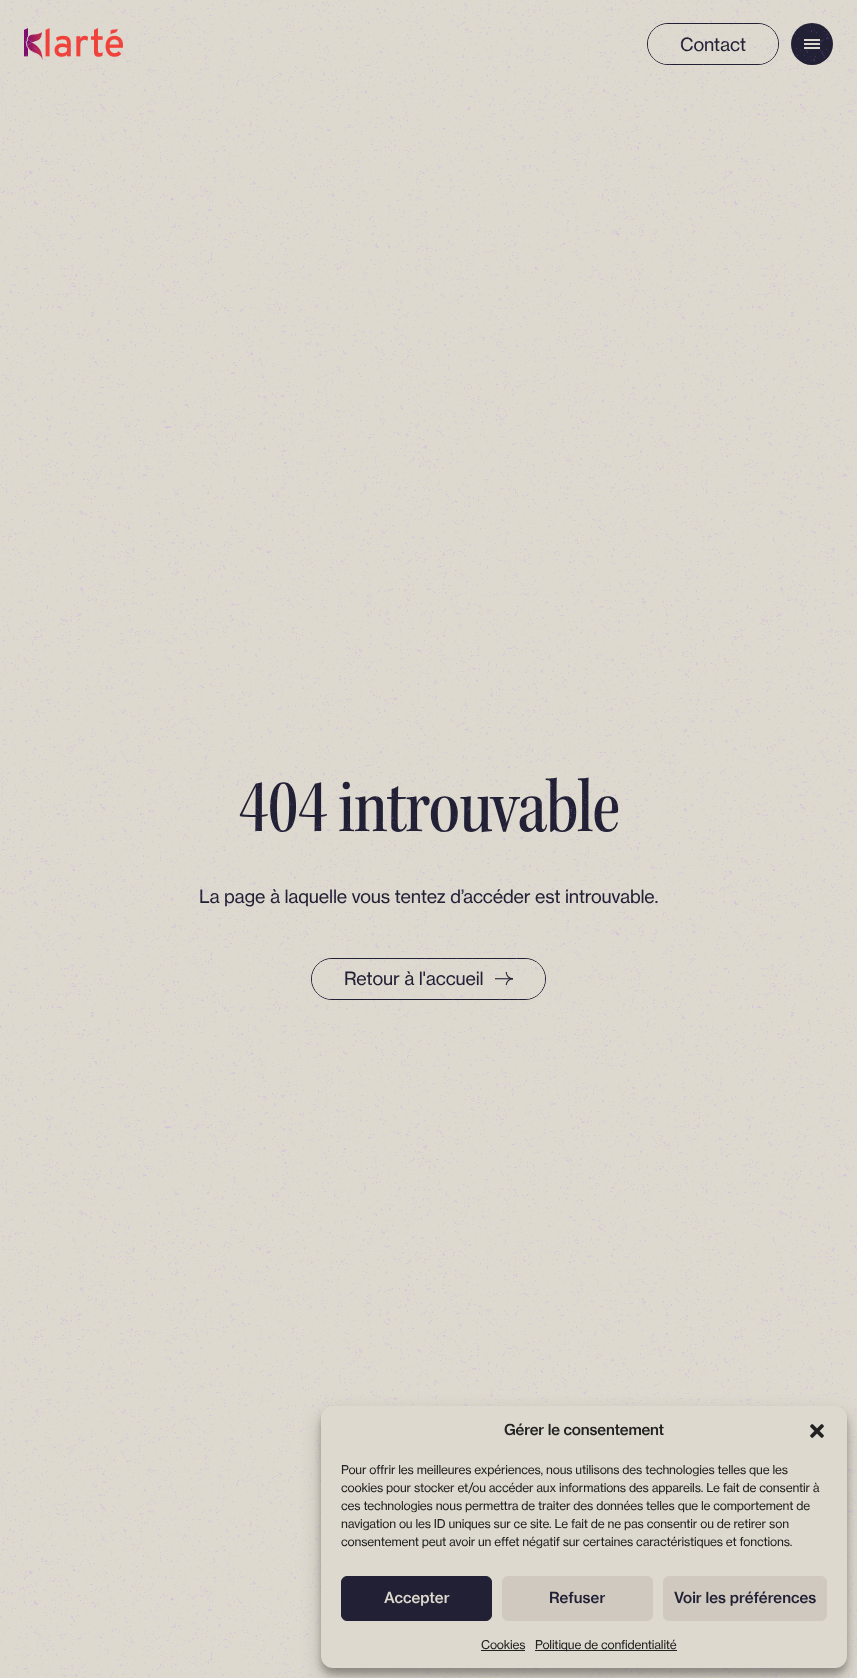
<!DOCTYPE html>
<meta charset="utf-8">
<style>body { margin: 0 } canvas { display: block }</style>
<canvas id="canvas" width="857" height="1678"></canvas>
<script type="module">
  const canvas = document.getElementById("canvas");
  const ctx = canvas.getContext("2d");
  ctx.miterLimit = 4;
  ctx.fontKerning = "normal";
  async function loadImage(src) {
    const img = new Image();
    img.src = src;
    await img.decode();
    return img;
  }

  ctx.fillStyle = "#ded9ce";
  ctx.fillRect(0, 0, 857, 1678);
  ctx.drawImage(await loadImage("img2.png"), 24, 28, 99, 32);
  ctx.beginPath();
  ctx.roundRect(647.5, 23.5, 131, 41, 20.5);
  ctx.strokeStyle = "#222035";
  ctx.stroke();
  ctx.beginPath();
  ctx.roundRect(648, 24, 130, 40, 20);
  ctx.fill();
  ctx.letterSpacing = "-0.18px";
  ctx.font = "18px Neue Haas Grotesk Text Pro";
  ctx.fillStyle = "#222035";
  ctx.fillText("Contact", 680, 51);
  ctx.beginPath();
  ctx.arc(812, 44, 21, 0, Math.PI * 2);
  ctx.fill();
  ctx.fillStyle = "#ded9ce";
  ctx.fillRect(804, 39, 16, 2);
  ctx.fillRect(804, 43, 16, 2);
  ctx.fillRect(804, 47, 16, 2);
  ctx.letterSpacing = "-1.6px";
  ctx.font = "500 80px 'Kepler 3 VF'";
  ctx.fillStyle = "#222035";
  ctx.fillText("404 introuvable", 238, 831);
  ctx.letterSpacing = "-0.18px";
  ctx.font = "18px Neue Haas Grotesk Text Pro";
  ctx.fillText("La page à laquelle vous tentez d’accéder est introuvable.", 199, 903);
  ctx.beginPath();
  ctx.roundRect(311.5, 958.5, 234, 41, 20.5);
  ctx.stroke();
  ctx.fillStyle = "#ded9ce";
  ctx.beginPath();
  ctx.roundRect(312, 959, 233, 40, 20);
  ctx.fill();
  ctx.fillStyle = "#222035";
  ctx.fillText("Retour à l'accueil", 344, 985);
  ctx.drawImage(await loadImage("img3.png"), 495, 972, 18, 13);
  ctx.drawImage(await loadImage("img1.png"), 0, 0, 857, 1678);
  ctx.fillStyle = "rgba(0, 0, 0, 0.23)";
  ctx.filter = "blur(3px)";
  ctx.beginPath();
  ctx.roundRect(321, 1412, 526, 262, 12);
  ctx.fill();
  ctx.filter = "none";
  ctx.fillStyle = "rgba(0, 0, 0, 0.19)";
  ctx.filter = "blur(10px)";
  ctx.beginPath();
  ctx.roundRect(321, 1416, 526, 262, 12);
  ctx.fill();
  ctx.filter = "none";
  ctx.fillStyle = "#ded9ce";
  ctx.beginPath();
  ctx.roundRect(321, 1406, 526, 262, 12);
  ctx.fill();
  ctx.font = "500 15px Neue Haas Grotesk Text Pro";
  ctx.fillStyle = "#222222";
  ctx.fillText("Gérer le consentement", 504, 1435);
  ctx.drawImage(await loadImage("img4.png"), 810, 1424, 14, 14);
  ctx.font = "12px Neue Haas Grotesk Text Pro";
  ctx.fillText("Pour offrir les meilleures expériences, nous utilisons des technologies telles que les", 341, 1474);
  ctx.fillText("cookies pour stocker et/ou accéder aux informations des appareils. Le fait de consentir à", 341, 1492);
  ctx.fillText("ces technologies nous permettra de traiter des données telles que le comportement de", 341, 1510);
  ctx.fillText("navigation ou les ID uniques sur ce site. Le fait de ne pas consentir ou de retirer son", 341, 1528);
  ctx.fillText("consentement peut avoir un effet négatif sur certaines caractéristiques et fonctions.", 341, 1546);
  ctx.fillStyle = "#222035";
  ctx.beginPath();
  ctx.roundRect(341.5, 1576.5, 150, 44, 5.5);
  ctx.fill();
  ctx.stroke();
  ctx.letterSpacing = "0px";
  ctx.font = "500 15px Neue Haas Grotesk Text Pro";
  ctx.fillStyle = "#ded9ce";
  ctx.fillText("Accepter", 384, 1603);
  ctx.fillStyle = "#cfc9bf";
  ctx.beginPath();
  ctx.roundRect(502.5, 1576.5, 150, 44, 5.5);
  ctx.fill();
  ctx.strokeStyle = "#cfc9bf";
  ctx.stroke();
  ctx.fillStyle = "#222035";
  ctx.fillText("Refuser", 549, 1603);
  ctx.fillStyle = "#cfc9bf";
  ctx.beginPath();
  ctx.roundRect(663.5, 1576.5, 163, 44, 5.5);
  ctx.fill();
  ctx.stroke();
  ctx.fillStyle = "#222035";
  ctx.fillText("Voir les préférences", 674, 1603);
  ctx.letterSpacing = "-0.18px";
  ctx.font = "12px Neue Haas Grotesk Text Pro";
  ctx.fillStyle = "#222222";
  ctx.fillText("Cookies", 481, 1649);
  ctx.fillRect(481, 1650, 44, 1);
  ctx.fillRect(535, 1650, 142, 1);
  ctx.fillText("Politique de confidentialité", 535, 1649);
</script>
